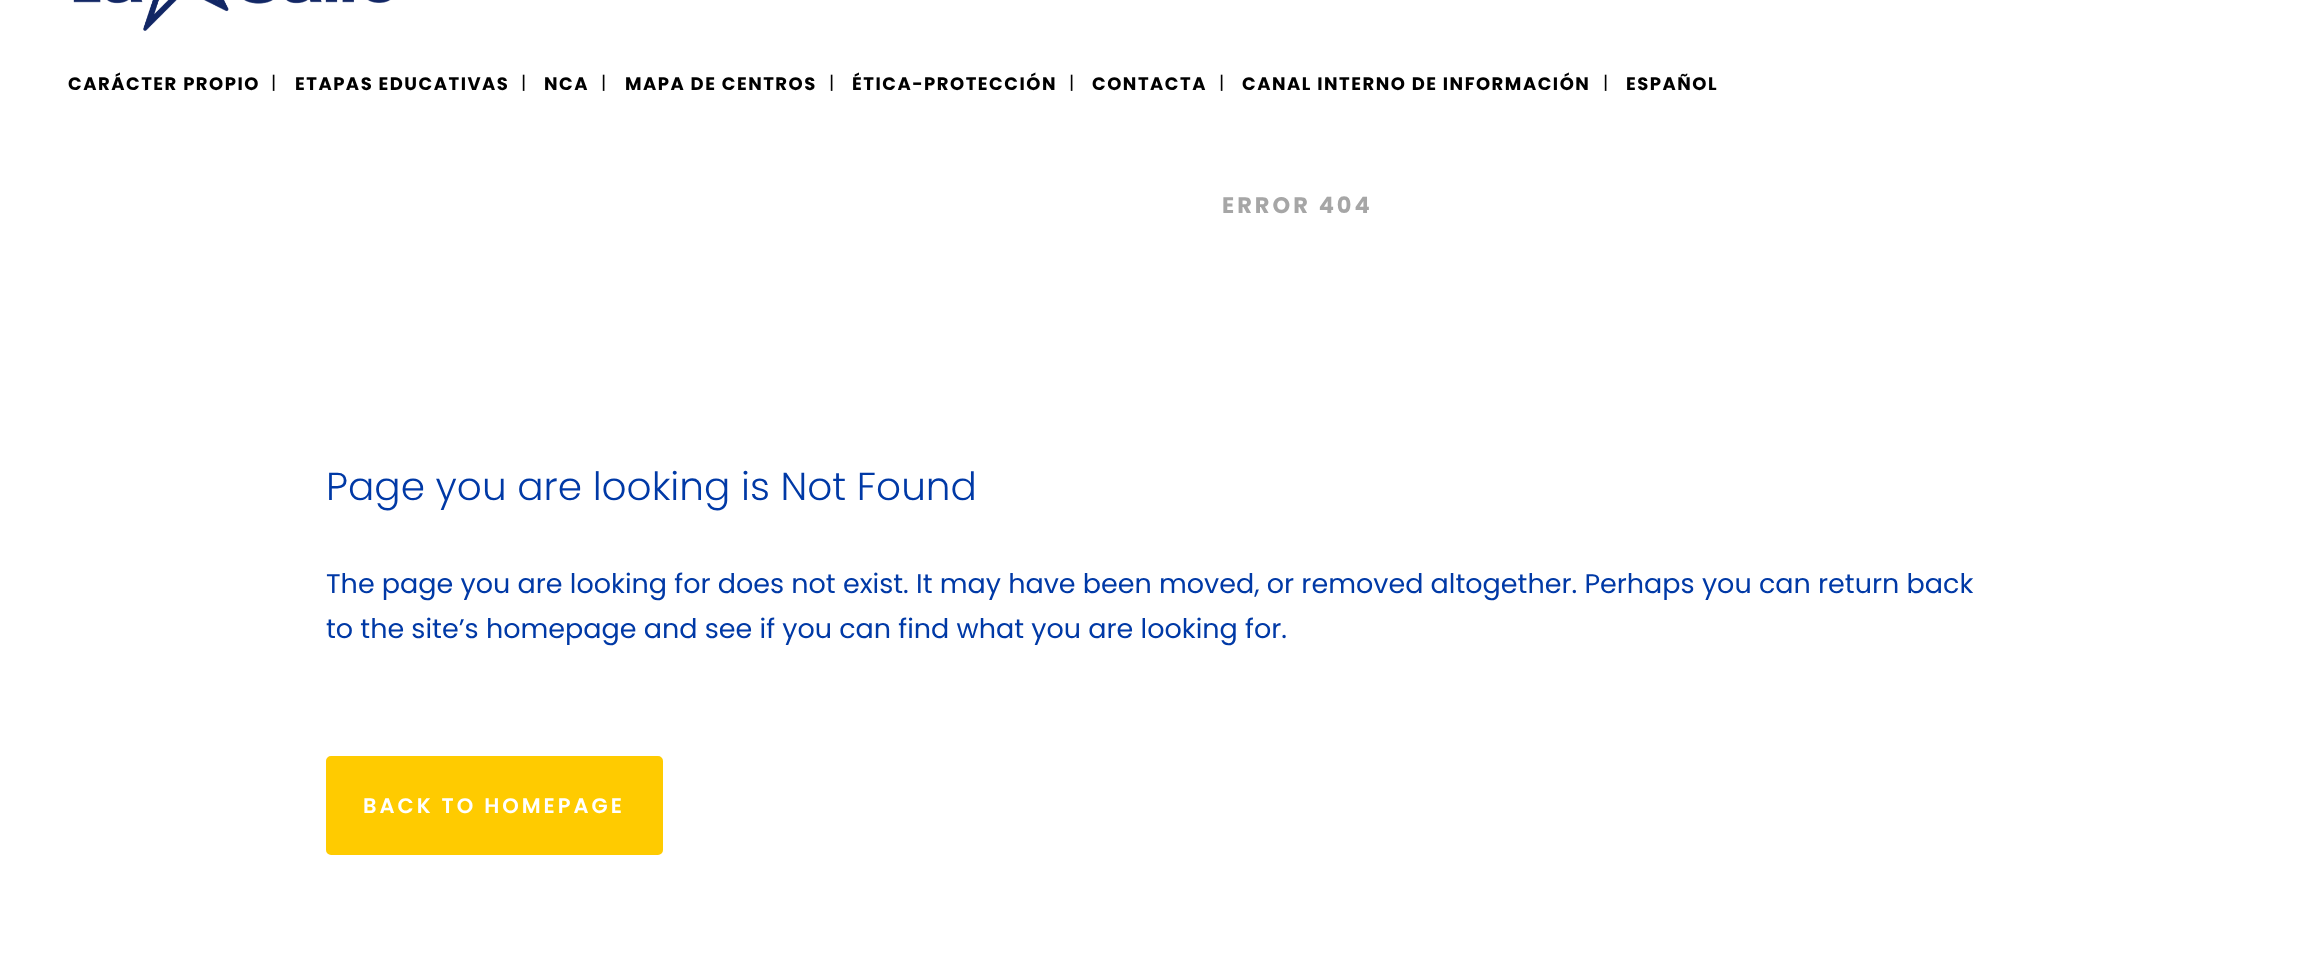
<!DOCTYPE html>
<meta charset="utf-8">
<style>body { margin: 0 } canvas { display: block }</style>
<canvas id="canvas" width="2300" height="966"></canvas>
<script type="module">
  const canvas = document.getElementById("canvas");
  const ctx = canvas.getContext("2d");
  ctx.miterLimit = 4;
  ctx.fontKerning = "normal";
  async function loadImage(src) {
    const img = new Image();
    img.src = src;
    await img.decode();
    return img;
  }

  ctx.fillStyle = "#ffffff";
  ctx.fillRect(0, 0, 2300, 966);
  ctx.drawImage(await loadImage("img1.png"), 73, 0, 318, 31);
  ctx.letterSpacing = "1.5px";
  ctx.font = "bold 18px Poppins";
  ctx.fillStyle = "#000000";
  ctx.fillText("CARÁCTER PROPIO", 68, 90);
  ctx.letterSpacing = "0px";
  ctx.font = "18px Poppins";
  ctx.fillText("|", 271, 89);
  ctx.letterSpacing = "1.5px";
  ctx.font = "bold 18px Poppins";
  ctx.fillText("ETAPAS EDUCATIVAS", 295, 90);
  ctx.letterSpacing = "0px";
  ctx.font = "18px Poppins";
  ctx.fillText("|", 521, 89);
  ctx.letterSpacing = "1.5px";
  ctx.font = "bold 18px Poppins";
  ctx.fillText("NCA", 544, 90);
  ctx.letterSpacing = "0px";
  ctx.font = "18px Poppins";
  ctx.fillText("|", 601, 89);
  ctx.letterSpacing = "1.5px";
  ctx.font = "bold 18px Poppins";
  ctx.fillText("MAPA DE CENTROS", 625, 90);
  ctx.letterSpacing = "0px";
  ctx.font = "18px Poppins";
  ctx.fillText("|", 829, 89);
  ctx.letterSpacing = "1.5px";
  ctx.font = "bold 18px Poppins";
  ctx.fillText("ÉTICA-PROTECCIÓN", 852, 90);
  ctx.letterSpacing = "0px";
  ctx.font = "18px Poppins";
  ctx.fillText("|", 1069, 89);
  ctx.letterSpacing = "1.5px";
  ctx.font = "bold 18px Poppins";
  ctx.fillText("CONTACTA", 1092, 90);
  ctx.letterSpacing = "0px";
  ctx.font = "18px Poppins";
  ctx.fillText("|", 1219, 89);
  ctx.letterSpacing = "1.5px";
  ctx.font = "bold 18px Poppins";
  ctx.fillText("CANAL INTERNO DE INFORMACIÓN", 1242, 90);
  ctx.letterSpacing = "0px";
  ctx.font = "18px Poppins";
  ctx.fillText("|", 1603, 89);
  ctx.letterSpacing = "1.5px";
  ctx.font = "bold 18px Poppins";
  ctx.fillText("ESPAÑOL", 1626, 90);
  ctx.letterSpacing = "3px";
  ctx.font = "bold 22.5px Poppins";
  ctx.fillStyle = "#a6a6a6";
  ctx.fillText("ERROR 404", 1222, 213);
  ctx.letterSpacing = "0px";
  ctx.font = "300 39px Poppins";
  ctx.fillStyle = "#0039a6";
  ctx.fillText("Page you are looking is Not Found", 326, 500);
  ctx.font = "27px Poppins";
  ctx.fillText("The page you are looking for does not exist. It may have been moved, or removed altogether. Perhaps you can return back", 326, 593);
  ctx.fillText("to the site’s homepage and see if you can find what you are looking for.", 326, 638);
  ctx.fillStyle = "#ffcb00";
  ctx.beginPath();
  ctx.roundRect(328.5, 758.5, 332, 94, 2.5);
  ctx.fill();
  ctx.strokeStyle = "#ffcb00";
  ctx.lineWidth = 5;
  ctx.stroke();
  ctx.letterSpacing = "3px";
  ctx.font = "600 21px Poppins";
  ctx.fillStyle = "#ffffff";
  ctx.fillText("BACK TO HOMEPAGE", 363, 813);
</script>
